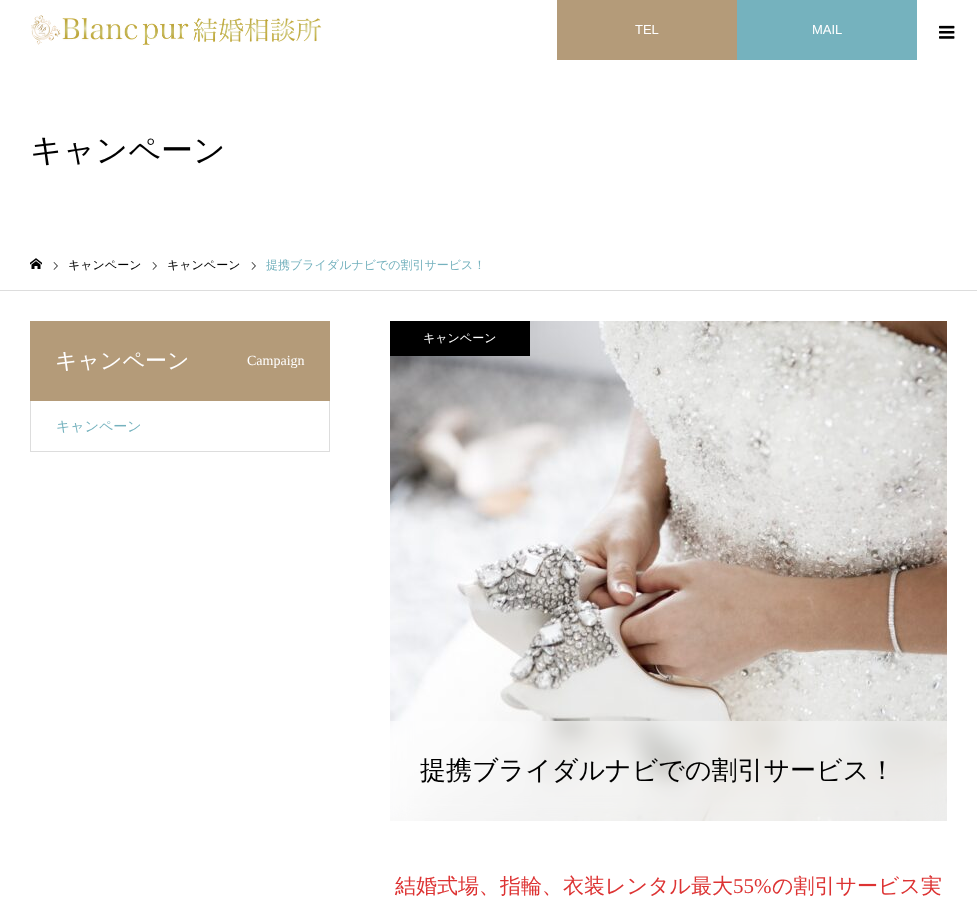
<!DOCTYPE html>
<meta charset="utf-8">
<style>body { margin: 0 } canvas { display: block }</style>
<canvas id="canvas" width="977" height="906"></canvas>
<script type="module">
  const canvas = document.getElementById("canvas");
  const ctx = canvas.getContext("2d");
  ctx.miterLimit = 4;
  ctx.fontKerning = "normal";
  async function loadImage(src) {
    const img = new Image();
    img.src = src;
    await img.decode();
    return img;
  }

  ctx.fillStyle = "#ffffff";
  ctx.fillRect(0, 0, 977, 906);
  ctx.drawImage(await loadImage("img1.png"), 31, 15, 291, 30);
  ctx.fillStyle = "#b49b79";
  ctx.fillRect(557, 0, 180, 60);
  ctx.font = "13px Liberation Sans";
  ctx.fillStyle = "#ffffff";
  ctx.fillText("TEL", 635, 34);
  ctx.fillStyle = "#75b2be";
  ctx.fillRect(737, 0, 180, 60);
  ctx.fillStyle = "#ffffff";
  ctx.fillText("MAIL", 812, 34);
  ctx.drawImage(await loadImage("img2.png"), 939, 25, 16, 14);
  ctx.font = "500 32px WenQuanYi Zen Hei";
  ctx.fillStyle = "#000000";
  ctx.fillText("キャンペーン", 30, 161);
  ctx.fillStyle = "#dddddd";
  ctx.fillRect(0, 290, 977, 1);
  ctx.drawImage(await loadImage("img3.png"), 30, 258, 12, 11);
  ctx.drawImage(await loadImage("img4.png"), 53, 262, 5, 8);
  ctx.font = "500 12px WenQuanYi Zen Hei";
  ctx.fillStyle = "#000000";
  ctx.fillText("キャンペーン", 68, 269);
  ctx.drawImage(await loadImage("img4.png"), 152, 262, 5, 8);
  ctx.fillText("キャンペーン", 167, 269);
  ctx.drawImage(await loadImage("img4.png"), 251, 262, 5, 8);
  ctx.fillStyle = "#75b2be";
  ctx.fillText("提携ブライダルナビでの割引サービス！", 266, 269);
  ctx.fillStyle = "#b49b79";
  ctx.fillRect(30, 321, 300, 80);
  ctx.font = "500 22px WenQuanYi Zen Hei";
  ctx.fillStyle = "#ffffff";
  ctx.fillText("キャンペーン", 55, 368);
  ctx.font = "14px Liberation Serif";
  ctx.fillText("Campaign", 247, 365);
  ctx.fillStyle = "#dddddd";
  ctx.fillRect(329, 401, 1, 51);
  ctx.fillRect(30, 451, 300, 1);
  ctx.fillRect(30, 401, 1, 51);
  ctx.font = "500 14px WenQuanYi Zen Hei";
  ctx.fillStyle = "#75b2be";
  ctx.fillText("キャンペーン", 56, 431);
  ctx.drawImage(await loadImage("img5.png"), 390, 321, 557, 500);
  ctx.fillStyle = "#000000";
  ctx.fillRect(390, 321, 140, 35);
  ctx.font = "500 12px WenQuanYi Zen Hei";
  ctx.fillStyle = "#ffffff";
  ctx.fillText("キャンペーン", 423, 342);
  ctx.drawImage(await loadImage("img6.png"), 390, 721, 557, 100);
  ctx.fillStyle = "rgba(255, 255, 255, 0.4)";
  ctx.fillRect(390, 721, 557, 100);
  ctx.font = "500 26px WenQuanYi Zen Hei";
  ctx.fillStyle = "#000000";
  ctx.fillText("提携ブライダルナビでの割引サービス！", 420, 779);
  ctx.font = "500 21px WenQuanYi Zen Hei";
  ctx.fillStyle = "#dd3333";
  ctx.fillText("結婚式場、指輪、衣装レンタル最大", 395, 893);
  ctx.font = "21px Liberation Serif";
  ctx.fillText("55%", 733, 893);
  ctx.font = "500 21px WenQuanYi Zen Hei";
  ctx.fillText("の割引サービス実", 772, 893);
</script>
